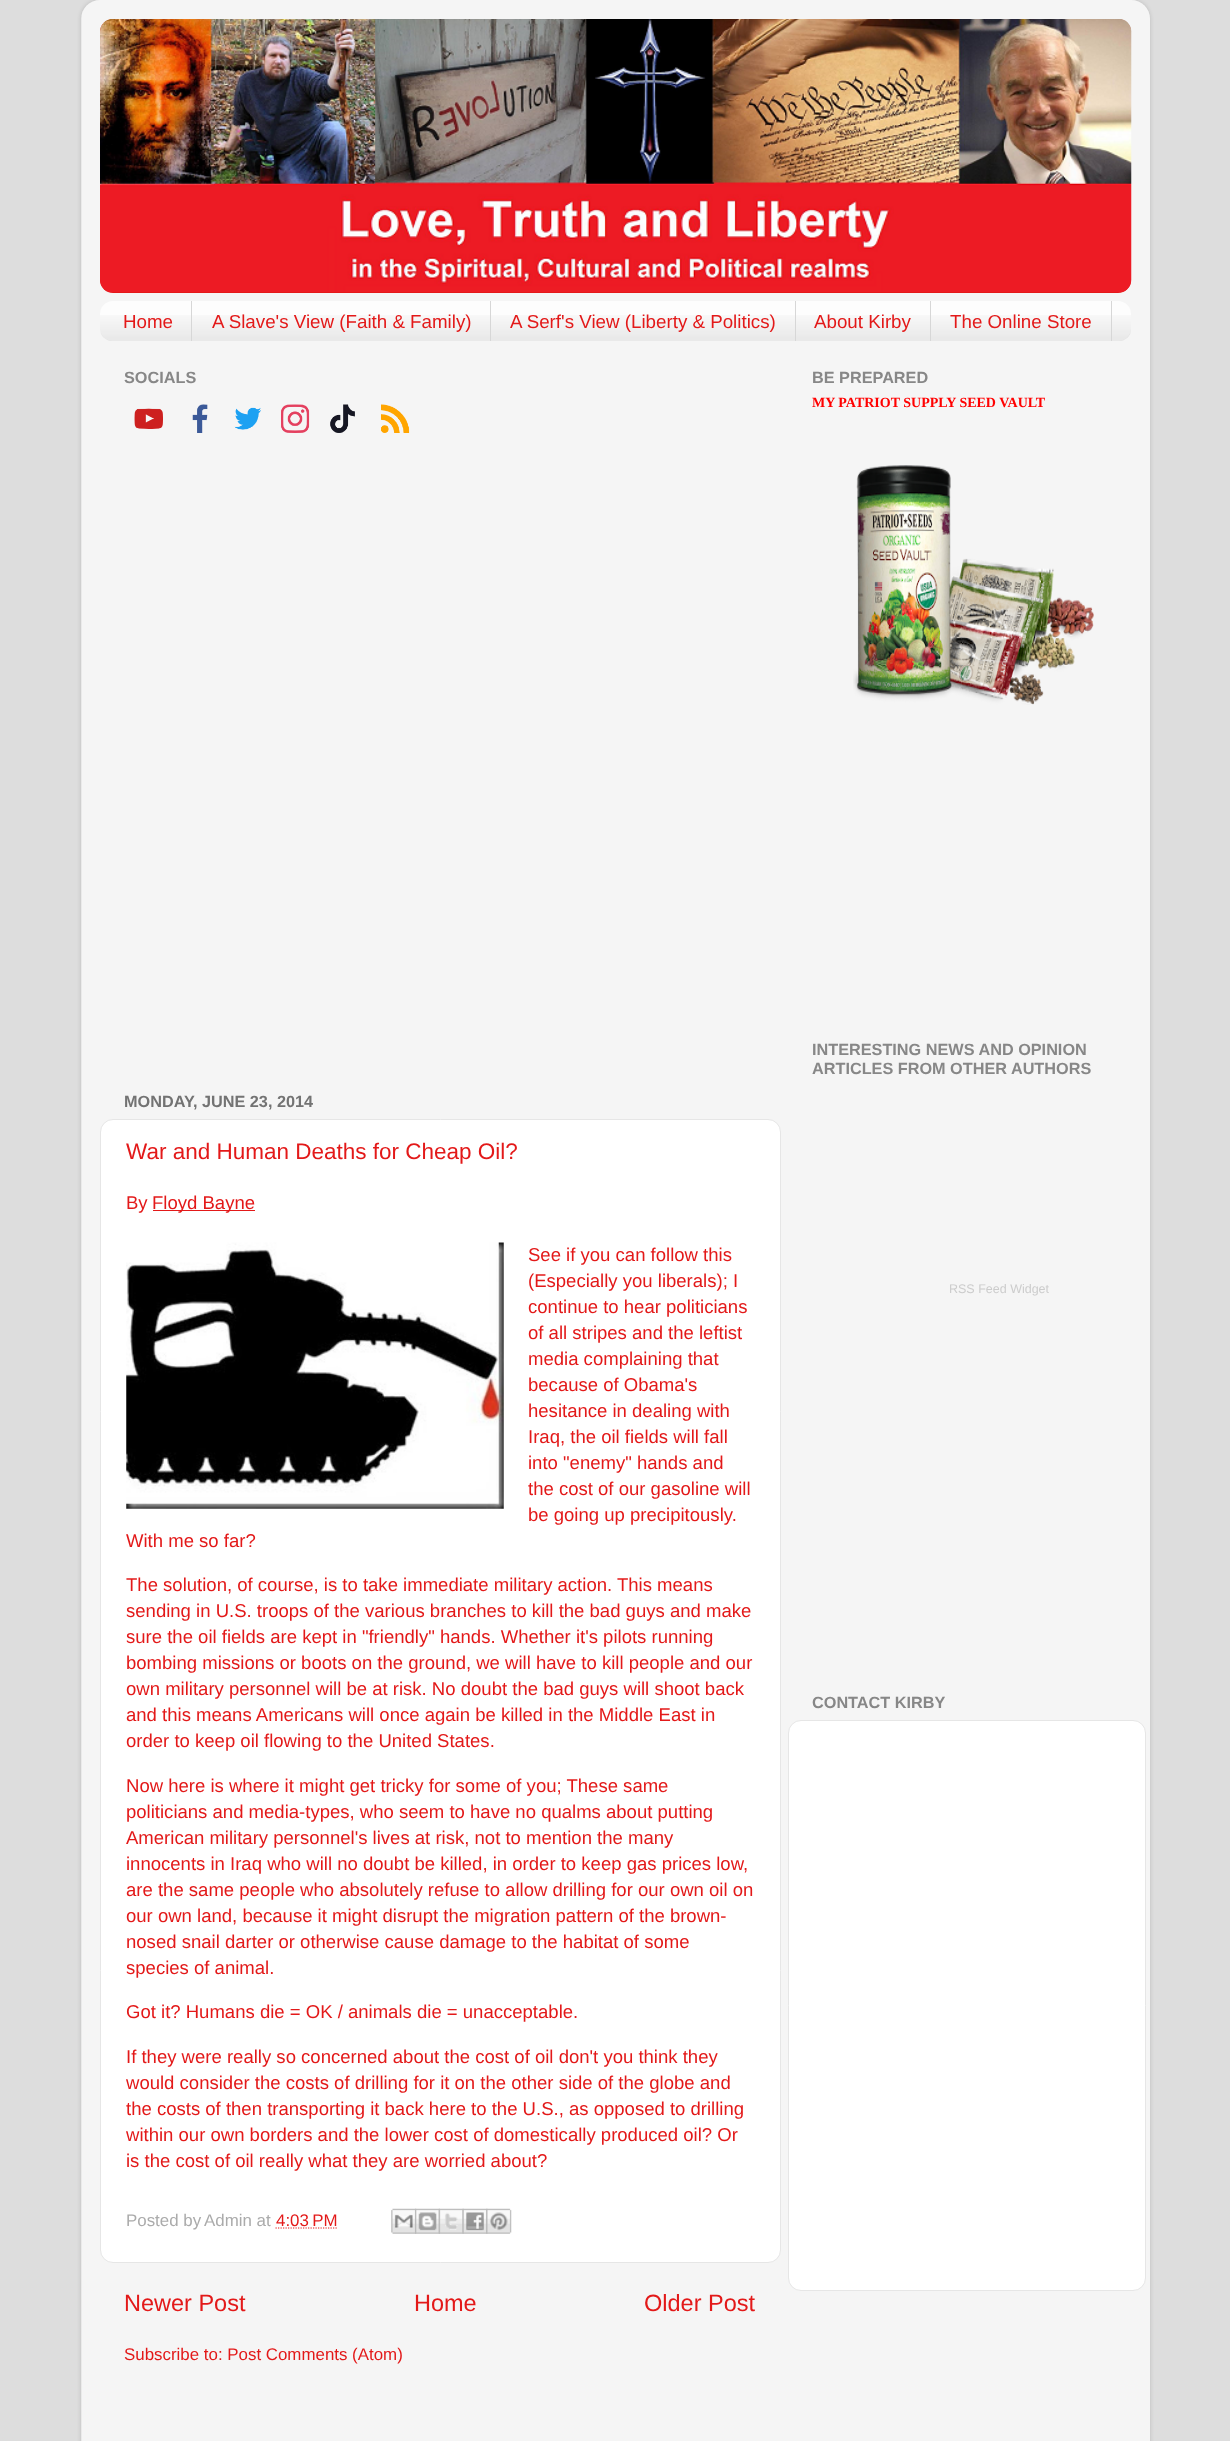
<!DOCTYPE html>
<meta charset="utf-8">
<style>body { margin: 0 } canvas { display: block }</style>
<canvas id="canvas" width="1230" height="2441"></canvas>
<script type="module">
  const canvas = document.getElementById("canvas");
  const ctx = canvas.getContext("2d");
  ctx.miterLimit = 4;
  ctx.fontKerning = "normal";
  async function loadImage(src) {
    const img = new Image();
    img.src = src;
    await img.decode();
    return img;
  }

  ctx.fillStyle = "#dddddd";
  ctx.fillRect(0, 0, 1230, 2441);
  ctx.save();
  ctx.beginPath();
  ctx.moveTo(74, 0);
  ctx.lineTo(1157, 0);
  ctx.lineTo(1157, 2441);
  ctx.lineTo(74, 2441);
  ctx.closePath();
  ctx.moveTo(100, 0);
  ctx.lineTo(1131, 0);
  ctx.bezierCurveTo(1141.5, 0, 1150, 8.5, 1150, 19);
  ctx.lineTo(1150, 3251);
  ctx.bezierCurveTo(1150, 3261.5, 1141.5, 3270, 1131, 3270);
  ctx.lineTo(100, 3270);
  ctx.bezierCurveTo(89.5, 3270, 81, 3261.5, 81, 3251);
  ctx.lineTo(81, 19);
  ctx.bezierCurveTo(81, 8.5, 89.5, 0, 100, 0);
  ctx.closePath();
  ctx.clip("evenodd");
  ctx.fillStyle = "rgba(0, 0, 0, 0.15)";
  ctx.filter = "blur(2px)";
  ctx.beginPath();
  ctx.roundRect(81, 0, 1069, 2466, 19);
  ctx.fill();
  ctx.filter = "none";
  ctx.restore();
  ctx.drawImage(await loadImage("img1.png"), 81, 0, 1069, 2441);
  ctx.fillStyle = "#e31919";
  ctx.beginPath();
  ctx.roundRect(100, 19, 1031, 274, 13);
  ctx.fill();
  ctx.drawImage(await loadImage("img2.png"), 100, 19, 1031, 12);
  ctx.drawImage(await loadImage("img3.png"), 100, 19, 1032, 274);
  ctx.fillStyle = "#fdfdfd";
  ctx.beginPath();
  ctx.roundRect(100, 301, 1031, 40, 13);
  ctx.fill();
  ctx.drawImage(await loadImage("img4.png"), 100, 315, 1031, 26);
  ctx.fillStyle = "#d7d7d7";
  ctx.fillRect(191, 301, 1, 40);
  ctx.font = "18.75px Liberation Sans";
  ctx.fillStyle = "#e31919";
  ctx.fillText("Home", 123, 328);
  ctx.fillStyle = "#d7d7d7";
  ctx.fillRect(490, 301, 1, 40);
  ctx.fillStyle = "#e31919";
  ctx.fillText("A Slave's View (Faith & Family)", 212, 328);
  ctx.fillStyle = "#d7d7d7";
  ctx.fillRect(795, 301, 1, 40);
  ctx.fillStyle = "#e31919";
  ctx.fillText("A Serf's View (Liberty & Politics)", 510, 328);
  ctx.fillStyle = "#d7d7d7";
  ctx.fillRect(930, 301, 1, 40);
  ctx.fillStyle = "#e31919";
  ctx.fillText("About Kirby", 814, 328);
  ctx.fillStyle = "#d7d7d7";
  ctx.fillRect(1111, 301, 1, 40);
  ctx.fillStyle = "#e31919";
  ctx.fillText("The Online Store", 950, 328);
  ctx.font = "bold 16.25px Liberation Sans";
  ctx.fillStyle = "#878787";
  ctx.fillText("SOCIALS", 124, 383);
  ctx.drawImage(await loadImage("img5.png"), 134, 408, 29, 21);
  ctx.drawImage(await loadImage("img6.png"), 192, 404, 16, 29);
  ctx.drawImage(await loadImage("img7.png"), 234, 407, 27, 23);
  ctx.drawImage(await loadImage("img8.png"), 281, 404, 29, 29);
  ctx.drawImage(await loadImage("img9.png"), 330, 404, 25, 29);
  ctx.drawImage(await loadImage("img10.png"), 381, 404, 29, 29);
  ctx.fillStyle = "#737373";
  ctx.fillText("MONDAY, JUNE 23, 2014", 124, 1107);
  ctx.fillStyle = "#ffffff";
  ctx.beginPath();
  ctx.roundRect(100.5, 1119.5, 680, 1143, 12.5);
  ctx.fill();
  ctx.strokeStyle = "#e6e6e6";
  ctx.stroke();
  ctx.font = "22.5px Liberation Sans";
  ctx.fillStyle = "#e31919";
  ctx.fillText("War and Human Deaths for Cheap Oil?", 126, 1159);
  ctx.font = "18.55px Liberation Sans";
  ctx.fillText("By", 126, 1209);
  ctx.fillRect(153, 1210, 102, 1);
  ctx.fillText("Floyd Bayne", 152, 1209);
  ctx.drawImage(await loadImage("img11.png"), 126, 1242, 378, 267);
  ctx.fillText("See if you can follow this", 528, 1261);
  ctx.fillText("(Especially you liberals); I", 528, 1287);
  ctx.fillText("continue to hear politicians", 528, 1313);
  ctx.fillText("of all stripes and the leftist", 528, 1339);
  ctx.fillText("media complaining that", 528, 1365);
  ctx.fillText("because of Obama's", 528, 1391);
  ctx.fillText("hesitance in dealing with", 528, 1417);
  ctx.fillText("Iraq, the oil fields will fall", 528, 1443);
  ctx.fillText("into \"enemy\" hands and", 528, 1469);
  ctx.fillText("the cost of our gasoline will", 528, 1495);
  ctx.fillText("be going up precipitously.", 528, 1521);
  ctx.fillText("With me so far?", 126, 1547);
  ctx.fillText("The solution, of course, is to take immediate military action. This means", 126, 1591);
  ctx.fillText("sending in U.S. troops of the various branches to kill the bad guys and make", 126, 1617);
  ctx.fillText("sure the oil fields are kept in \"friendly\" hands. Whether it's pilots running", 126, 1643);
  ctx.fillText("bombing missions or boots on the ground, we will have to kill people and our", 126, 1669);
  ctx.fillText("own military personnel will be at risk. No doubt the bad guys will shoot back", 126, 1695);
  ctx.fillText("and this means Americans will once again be killed in the Middle East in", 126, 1721);
  ctx.fillText("order to keep oil flowing to the United States.", 126, 1747);
  ctx.fillText("Now here is where it might get tricky for some of you; These same", 126, 1792);
  ctx.fillText("politicians and media-types, who seem to have no qualms about putting", 126, 1818);
  ctx.fillText("American military personnel's lives at risk, not to mention the many", 126, 1844);
  ctx.fillText("innocents in Iraq who will no doubt be killed, in order to keep gas prices low,", 126, 1870);
  ctx.fillText("are the same people who absolutely refuse to allow drilling for our own oil on", 126, 1896);
  ctx.fillText("our own land, because it might disrupt the migration pattern of the brown-", 126, 1922);
  ctx.fillText("nosed snail darter or otherwise cause damage to the habitat of some", 126, 1948);
  ctx.fillText("species of animal.", 126, 1974);
  ctx.fillText("Got it? Humans die = OK / animals die = unacceptable.", 126, 2018);
  ctx.fillText("If they were really so concerned about the cost of oil don't you think they", 126, 2063);
  ctx.fillText("would consider the costs of drilling for it on the other side of the globe and", 126, 2089);
  ctx.fillText("the costs of then transporting it back here to the U.S., as opposed to drilling", 126, 2115);
  ctx.fillText("within our own borders and the lower cost of domestically produced oil? Or", 126, 2141);
  ctx.fillText("is the cost of oil really what they are worried about?", 126, 2167);
  ctx.font = "16.9px Liberation Sans";
  ctx.fillStyle = "#ababab";
  ctx.fillText("Posted by", 126, 2226);
  ctx.fillText("Admin at", 204, 2226);
  ctx.fillStyle = "#e31919";
  ctx.fillText("4:03 PM", 276, 2226);
  ctx.beginPath();
  ctx.moveTo(275.5, 2228);
  ctx.lineTo(337.5, 2228);
  ctx.strokeStyle = "#e31919";
  ctx.lineWidth = 1.2;
  ctx.setLineDash([1.25, 1.25]);
  ctx.stroke();
  ctx.drawImage(await loadImage("img12.png"), 391, 2208, 26, 26);
  ctx.drawImage(await loadImage("img13.png"), 415, 2208, 25, 26);
  ctx.drawImage(await loadImage("img14.png"), 438, 2208, 26, 26);
  ctx.drawImage(await loadImage("img15.png"), 462, 2208, 26, 26);
  ctx.drawImage(await loadImage("img16.png"), 486, 2208, 26, 26);
  ctx.font = "23.5px Liberation Sans";
  ctx.fillText("Newer Post", 124, 2311);
  ctx.fillText("Home", 414, 2311);
  ctx.fillText("Older Post", 644, 2311);
  ctx.font = "16.9px Liberation Sans";
  ctx.fillText("Subscribe to: Post Comments (Atom)", 124, 2360);
  ctx.font = "bold 16.25px Liberation Sans";
  ctx.fillStyle = "#878787";
  ctx.fillText("BE PREPARED", 812, 383);
  ctx.font = "bold 14px Liberation Serif";
  ctx.fillStyle = "#ff0000";
  ctx.fillText("MY PATRIOT SUPPLY SEED VAULT", 812, 407);
  ctx.drawImage(await loadImage("img17.png"), 853, 465, 241, 240);
  ctx.font = "bold 16.25px Liberation Sans";
  ctx.fillStyle = "#878787";
  ctx.fillText("INTERESTING NEWS AND OPINION", 812, 1055);
  ctx.fillText("ARTICLES FROM OTHER AUTHORS", 812, 1074);
  ctx.font = "12.5px Liberation Sans";
  ctx.fillStyle = "#cccccc";
  ctx.fillText("RSS Feed Widget", 949, 1293);
  ctx.font = "bold 16.25px Liberation Sans";
  ctx.fillStyle = "#878787";
  ctx.fillText("CONTACT KIRBY", 812, 1708);
  ctx.fillStyle = "#ffffff";
  ctx.beginPath();
  ctx.roundRect(788.5, 1720.5, 357, 570, 12.5);
  ctx.fill();
  ctx.strokeStyle = "#e6e6e6";
  ctx.lineWidth = 1;
  ctx.setLineDash([]);
  ctx.stroke();
</script>
